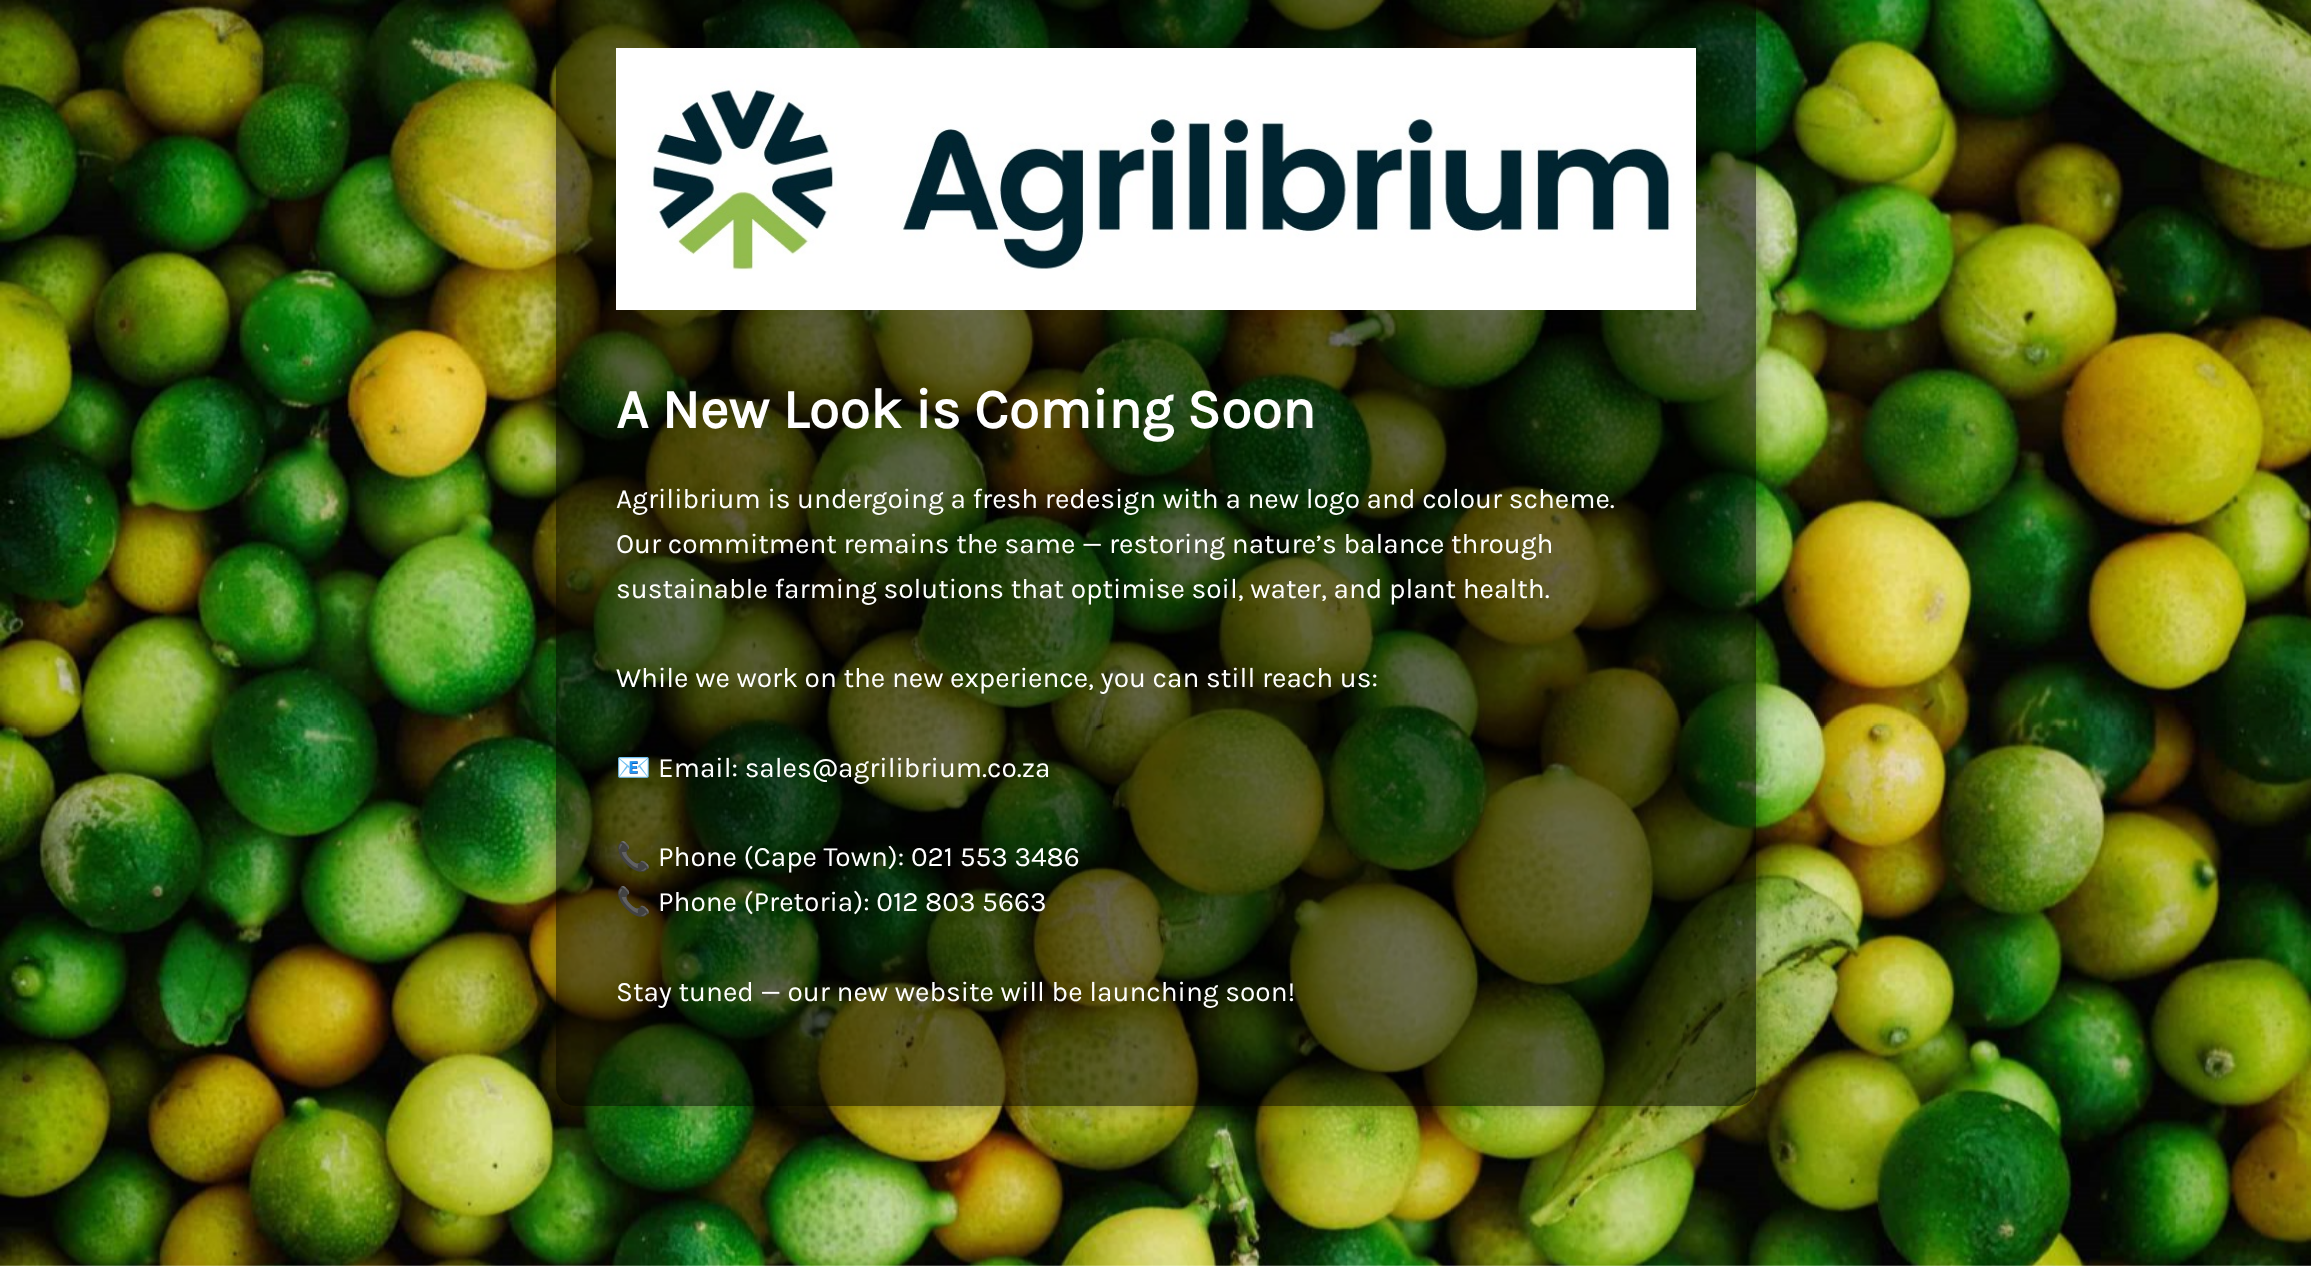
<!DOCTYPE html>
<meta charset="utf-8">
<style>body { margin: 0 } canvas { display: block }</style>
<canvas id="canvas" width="2311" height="1266"></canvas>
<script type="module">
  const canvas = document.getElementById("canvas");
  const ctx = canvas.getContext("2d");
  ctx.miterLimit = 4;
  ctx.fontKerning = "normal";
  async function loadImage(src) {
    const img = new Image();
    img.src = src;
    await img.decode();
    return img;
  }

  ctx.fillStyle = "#ffffff";
  ctx.fillRect(0, 0, 2311, 1266);
  ctx.drawImage(await loadImage("img1.png"), 0, 0, 2311, 1266);
  ctx.save();
  ctx.beginPath();
  ctx.moveTo(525, 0);
  ctx.lineTo(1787, 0);
  ctx.lineTo(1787, 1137);
  ctx.lineTo(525, 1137);
  ctx.closePath();
  ctx.moveTo(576, -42);
  ctx.lineTo(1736, -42);
  ctx.bezierCurveTo(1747, -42, 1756, -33, 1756, -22);
  ctx.lineTo(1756, 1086);
  ctx.bezierCurveTo(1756, 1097, 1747, 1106, 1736, 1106);
  ctx.lineTo(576, 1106);
  ctx.bezierCurveTo(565, 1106, 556, 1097, 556, 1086);
  ctx.lineTo(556, -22);
  ctx.bezierCurveTo(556, -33, 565, -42, 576, -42);
  ctx.closePath();
  ctx.clip("evenodd");
  ctx.fillStyle = "rgba(0, 0, 0, 0.33)";
  ctx.filter = "blur(10px)";
  ctx.beginPath();
  ctx.roundRect(556, -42, 1200, 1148, 20);
  ctx.fill();
  ctx.filter = "none";
  ctx.restore();
  ctx.fillStyle = "rgba(0, 0, 0, 0.55)";
  ctx.beginPath();
  ctx.roundRect(556, -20, 1200, 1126, 20);
  ctx.fill();
  ctx.drawImage(await loadImage("img2.png"), 616, 48, 1080, 262);
  ctx.font = "bold 56px Karla";
  ctx.fillStyle = "#ffffff";
  ctx.fillText("A New Look is Coming Soon", 616, 428);
  ctx.font = "28px Karla";
  ctx.fillText("Agrilibrium is undergoing a fresh redesign with a new logo and colour scheme.", 616, 508);
  ctx.fillText("Our commitment remains the same — restoring nature’s balance through", 616, 553);
  ctx.fillText("sustainable farming solutions that optimise soil, water, and plant health.", 616, 598);
  ctx.fillText("While we work on the new experience, you can still reach us:", 616, 687);
  ctx.font = "28px Noto Color Emoji";
  ctx.fillText("📧", 616, 777);
  ctx.font = "28px Karla";
  ctx.fillText("Email: sales@agrilibrium.co.za", 658, 777);
  ctx.font = "28px Noto Color Emoji";
  ctx.fillText("📞", 616, 866);
  ctx.font = "28px Karla";
  ctx.fillText("Phone (Cape Town): 021 553 3486", 658, 866);
  ctx.font = "28px Noto Color Emoji";
  ctx.fillText("📞", 616, 911);
  ctx.font = "28px Karla";
  ctx.fillText("Phone (Pretoria): 012 803 5663", 658, 911);
  ctx.fillText("Stay tuned — our new website will be launching soon!", 616, 1001);
</script>
